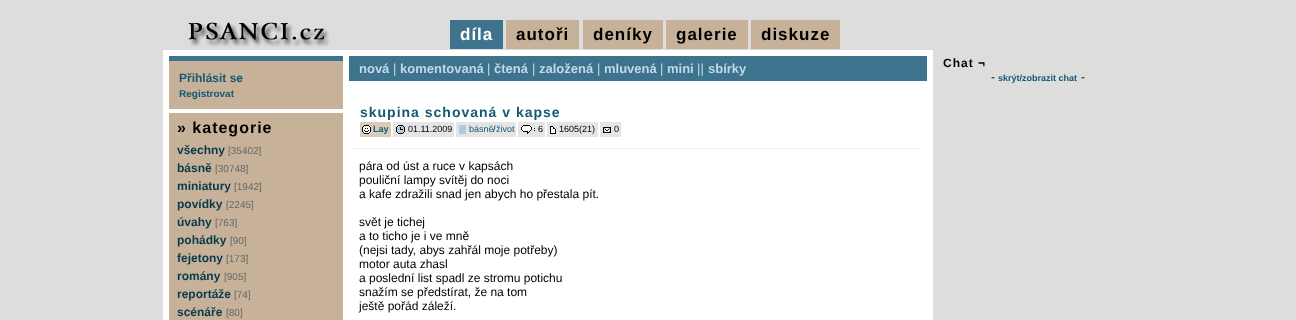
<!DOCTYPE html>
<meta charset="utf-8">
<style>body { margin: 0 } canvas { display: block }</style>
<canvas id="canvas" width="1296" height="320"></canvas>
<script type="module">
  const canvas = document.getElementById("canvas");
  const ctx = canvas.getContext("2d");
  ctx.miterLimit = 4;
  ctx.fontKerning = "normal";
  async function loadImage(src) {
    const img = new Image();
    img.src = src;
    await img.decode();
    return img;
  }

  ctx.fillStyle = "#dddddd";
  ctx.fillRect(0, 0, 1296, 320);
  ctx.drawImage(await loadImage("img1.png"), 188, 22, 142, 25);
  ctx.fillStyle = "#3e738d";
  ctx.fillRect(450, 20, 53, 29);
  ctx.letterSpacing = "1px";
  ctx.font = "bold 17px Liberation Sans";
  ctx.fillStyle = "#ffffff";
  ctx.fillText("díla", 460, 40);
  ctx.fillStyle = "#c7b299";
  ctx.fillRect(506, 20, 73, 29);
  ctx.fillStyle = "#000000";
  ctx.fillText("autoři", 516, 40);
  ctx.fillStyle = "#c7b299";
  ctx.fillRect(583, 20, 80, 29);
  ctx.fillStyle = "#000000";
  ctx.fillText("deníky", 593, 40);
  ctx.fillStyle = "#c7b299";
  ctx.fillRect(666, 20, 82, 29);
  ctx.fillStyle = "#000000";
  ctx.fillText("galerie", 676, 40);
  ctx.fillStyle = "#c7b299";
  ctx.fillRect(751, 20, 89, 29);
  ctx.fillStyle = "#000000";
  ctx.fillText("diskuze", 761, 40);
  ctx.fillStyle = "#ffffff";
  ctx.fillRect(163, 50, 770, 270);
  ctx.fillStyle = "#c7b299";
  ctx.fillRect(169, 61, 174, 48);
  ctx.fillStyle = "#3e738d";
  ctx.fillRect(169, 56, 174, 5);
  ctx.letterSpacing = "0px";
  ctx.font = "bold 12px Liberation Sans";
  ctx.fillStyle = "#145973";
  ctx.fillText("Přihlásit se", 179, 82);
  ctx.font = "bold 10px Liberation Sans";
  ctx.fillText("Registrovat", 179, 97);
  ctx.fillStyle = "#c7b299";
  ctx.fillRect(169, 113, 174, 207);
  ctx.letterSpacing = "1px";
  ctx.font = "bold 16px Liberation Sans";
  ctx.fillStyle = "#000000";
  ctx.fillText("» kategorie", 177, 133);
  ctx.letterSpacing = "0px";
  ctx.font = "bold 12px Liberation Sans";
  ctx.fillStyle = "#073a4d";
  ctx.fillText("všechny", 177, 154);
  ctx.font = "10px Liberation Sans";
  ctx.fillStyle = "#666666";
  ctx.fillText("[35402]", 228, 154);
  ctx.font = "bold 12px Liberation Sans";
  ctx.fillStyle = "#073a4d";
  ctx.fillText("básně", 177, 172);
  ctx.font = "10px Liberation Sans";
  ctx.fillStyle = "#666666";
  ctx.fillText("[30748]", 215, 172);
  ctx.font = "bold 12px Liberation Sans";
  ctx.fillStyle = "#073a4d";
  ctx.fillText("miniatury", 177, 190);
  ctx.font = "10px Liberation Sans";
  ctx.fillStyle = "#666666";
  ctx.fillText("[1942]", 234, 190);
  ctx.font = "bold 12px Liberation Sans";
  ctx.fillStyle = "#073a4d";
  ctx.fillText("povídky", 177, 208);
  ctx.font = "10px Liberation Sans";
  ctx.fillStyle = "#666666";
  ctx.fillText("[2245]", 226, 208);
  ctx.font = "bold 12px Liberation Sans";
  ctx.fillStyle = "#073a4d";
  ctx.fillText("úvahy", 177, 226);
  ctx.font = "10px Liberation Sans";
  ctx.fillStyle = "#666666";
  ctx.fillText("[763]", 215, 226);
  ctx.font = "bold 12px Liberation Sans";
  ctx.fillStyle = "#073a4d";
  ctx.fillText("pohádky", 177, 244);
  ctx.font = "10px Liberation Sans";
  ctx.fillStyle = "#666666";
  ctx.fillText("[90]", 230, 244);
  ctx.font = "bold 12px Liberation Sans";
  ctx.fillStyle = "#073a4d";
  ctx.fillText("fejetony", 177, 262);
  ctx.font = "10px Liberation Sans";
  ctx.fillStyle = "#666666";
  ctx.fillText("[173]", 226, 262);
  ctx.font = "bold 12px Liberation Sans";
  ctx.fillStyle = "#073a4d";
  ctx.fillText("romány", 177, 280);
  ctx.font = "10px Liberation Sans";
  ctx.fillStyle = "#666666";
  ctx.fillText("[905]", 224, 280);
  ctx.font = "bold 12px Liberation Sans";
  ctx.fillStyle = "#073a4d";
  ctx.fillText("reportáže", 177, 298);
  ctx.font = "10px Liberation Sans";
  ctx.fillStyle = "#666666";
  ctx.fillText("[74]", 234, 298);
  ctx.font = "bold 12px Liberation Sans";
  ctx.fillStyle = "#073a4d";
  ctx.fillText("scénáře", 177, 316);
  ctx.font = "10px Liberation Sans";
  ctx.fillStyle = "#666666";
  ctx.fillText("[80]", 226, 316);
  ctx.fillStyle = "#3e738d";
  ctx.fillRect(349, 56, 578, 25);
  ctx.font = "bold 13px Liberation Sans";
  ctx.fillStyle = "#bfdae7";
  ctx.fillText("nová", 359, 73);
  ctx.font = "13px Liberation Sans";
  ctx.fillText("|", 393, 73);
  ctx.font = "bold 13px Liberation Sans";
  ctx.fillText("komentovaná", 400, 73);
  ctx.font = "13px Liberation Sans";
  ctx.fillText("|", 487, 73);
  ctx.font = "bold 13px Liberation Sans";
  ctx.fillText("čtená", 494, 73);
  ctx.font = "13px Liberation Sans";
  ctx.fillText("|", 532, 73);
  ctx.font = "bold 13px Liberation Sans";
  ctx.fillText("založená", 539, 73);
  ctx.font = "13px Liberation Sans";
  ctx.fillText("|", 597, 73);
  ctx.font = "bold 13px Liberation Sans";
  ctx.fillText("mluvená", 604, 73);
  ctx.font = "13px Liberation Sans";
  ctx.fillText("|", 660, 73);
  ctx.font = "bold 13px Liberation Sans";
  ctx.fillText("mini", 667, 73);
  ctx.font = "13px Liberation Sans";
  ctx.fillText("||", 697, 73);
  ctx.font = "bold 13px Liberation Sans";
  ctx.fillText("sbírky", 708, 73);
  ctx.letterSpacing = "1px";
  ctx.font = "bold 14px Liberation Sans";
  ctx.fillStyle = "#145973";
  ctx.fillText("skupina schovaná v kapse", 360, 117);
  ctx.fillStyle = "#dbcbb9";
  ctx.fillRect(360, 122, 31, 15);
  ctx.drawImage(await loadImage("img2.png"), 362, 125, 9, 9);
  ctx.letterSpacing = "0px";
  ctx.font = "bold 9px Liberation Sans";
  ctx.fillStyle = "#145973";
  ctx.fillText("Lay", 373, 132);
  ctx.fillStyle = "#e5e5e5";
  ctx.fillRect(393, 122, 61, 15);
  ctx.drawImage(await loadImage("img3.png"), 396, 125, 9, 9);
  ctx.font = "9px Liberation Sans";
  ctx.fillStyle = "#000000";
  ctx.fillText("01.11.2009", 408, 132);
  ctx.fillStyle = "#e5e5e5";
  ctx.fillRect(456, 122, 60, 15);
  ctx.fillStyle = "#b0ccda";
  ctx.fillRect(459, 125, 7, 9);
  ctx.fillStyle = "#145973";
  ctx.fillText("básně život", 469, 132);
  ctx.fillStyle = "#000000";
  ctx.fillText("/", 493, 132);
  ctx.fillStyle = "#e5e5e5";
  ctx.fillRect(518, 122, 27, 15);
  ctx.drawImage(await loadImage("img4.png"), 521, 125, 14, 9);
  ctx.fillStyle = "#000000";
  ctx.fillText("6", 538, 132);
  ctx.fillStyle = "#e5e5e5";
  ctx.fillRect(547, 122, 51, 15);
  ctx.drawImage(await loadImage("img5.png"), 550, 126, 6, 8);
  ctx.fillStyle = "#000000";
  ctx.fillText("1605(21)", 559, 132);
  ctx.fillStyle = "#e5e5e5";
  ctx.fillRect(600, 122, 21, 15);
  ctx.drawImage(await loadImage("img6.png"), 603, 127, 8, 6);
  ctx.fillStyle = "#000000";
  ctx.fillText("0", 614, 132);
  ctx.beginPath();
  ctx.moveTo(353, 148.5);
  ctx.lineTo(923, 148.5);
  ctx.strokeStyle = "#dddddd";
  ctx.setLineDash([1, 1]);
  ctx.stroke();
  ctx.font = "12px Liberation Sans";
  ctx.fillText("pára od úst a ruce v kapsách", 359, 170);
  ctx.fillText("pouliční lampy svítěj do noci", 359, 184);
  ctx.fillText("a kafe zdražili snad jen abych ho přestala pít.", 359, 198);
  ctx.fillText("svět je tichej", 359, 226);
  ctx.fillText("a to ticho je i ve mně", 359, 240);
  ctx.fillText("(nejsi tady, abys zahřál moje potřeby)", 359, 254);
  ctx.fillText("motor auta zhasl", 359, 268);
  ctx.fillText("a poslední list spadl ze stromu potichu", 359, 282);
  ctx.fillText("snažím se předstírat, že na tom", 359, 296);
  ctx.fillText("ještě pořád záleží.", 359, 310);
  ctx.letterSpacing = "1px";
  ctx.font = "bold 12px Liberation Sans";
  ctx.fillText("Chat ¬", 943, 67);
  ctx.letterSpacing = "0px";
  ctx.font = "12px Liberation Sans";
  ctx.fillText("-", 991, 81);
  ctx.font = "bold 9px Liberation Sans";
  ctx.fillStyle = "#145973";
  ctx.fillText("skrýt/zobrazit chat", 998, 81);
  ctx.font = "12px Liberation Sans";
  ctx.fillStyle = "#000000";
  ctx.fillText("-", 1081, 81);
</script>
